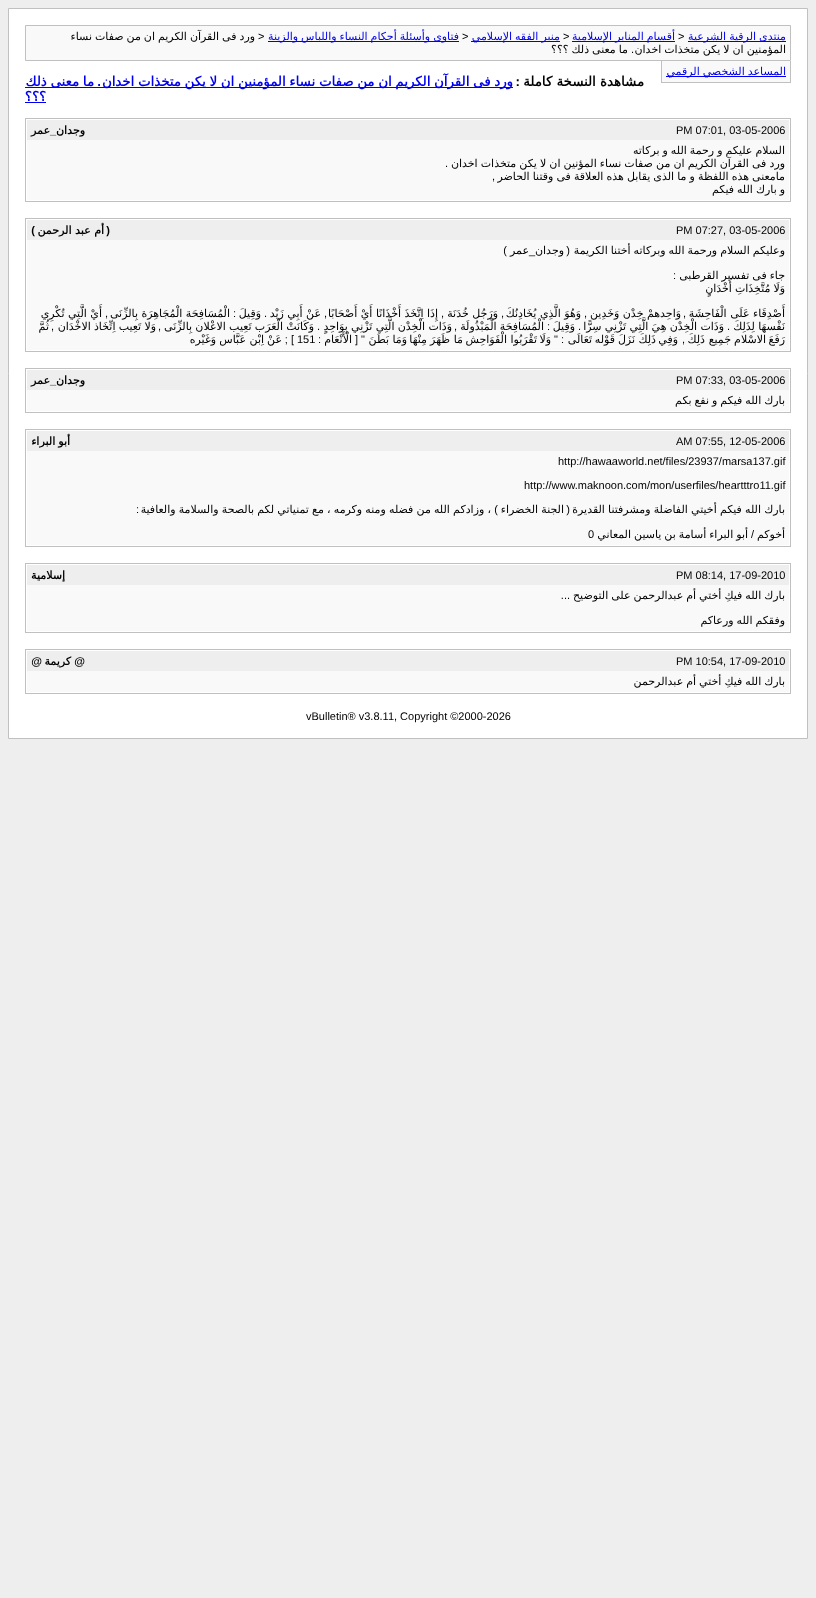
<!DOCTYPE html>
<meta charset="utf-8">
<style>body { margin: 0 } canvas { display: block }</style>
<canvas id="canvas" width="816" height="1598"></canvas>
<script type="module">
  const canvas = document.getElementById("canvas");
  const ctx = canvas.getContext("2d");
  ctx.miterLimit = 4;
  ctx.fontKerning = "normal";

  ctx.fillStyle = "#eeeeee";
  ctx.fillRect(0, 0, 816, 1598);
  ctx.fillStyle = "#ffffff";
  ctx.beginPath();
  ctx.rect(8.5, 8.5, 799, 730);
  ctx.fill();
  ctx.strokeStyle = "#c0c0c0";
  ctx.stroke();
  ctx.fillStyle = "#f9f9f9";
  ctx.beginPath();
  ctx.rect(25.5, 25.5, 765, 35);
  ctx.fill();
  ctx.stroke();
  ctx.fillStyle = "#0000ee";
  ctx.fillRect(688, 41, 98, 1);
  ctx.wordSpacing = "-0.5px";
  ctx.direction = "rtl";
  ctx.font = "11px DejaVu Sans";
  ctx.fillText("منتدى الرقية الشرعية", 786, 40);
  ctx.wordSpacing = "0px";
  ctx.direction = "ltr";
  ctx.font = "11px Liberation Sans";
  ctx.fillStyle = "#000000";
  ctx.fillText(">", 678, 40);
  ctx.fillStyle = "#0000ee";
  ctx.fillRect(572, 41, 103, 1);
  ctx.wordSpacing = "-0.5px";
  ctx.direction = "rtl";
  ctx.font = "11px DejaVu Sans";
  ctx.fillText("أقسام المنابر الإسلامية", 675, 40);
  ctx.wordSpacing = "0px";
  ctx.direction = "ltr";
  ctx.font = "11px Liberation Sans";
  ctx.fillStyle = "#000000";
  ctx.fillText(">", 563, 40);
  ctx.fillStyle = "#0000ee";
  ctx.fillRect(471, 41, 89, 1);
  ctx.wordSpacing = "-0.5px";
  ctx.direction = "rtl";
  ctx.font = "11px DejaVu Sans";
  ctx.fillText("منبر الفقه الإسلامي", 560, 40);
  ctx.wordSpacing = "0px";
  ctx.direction = "ltr";
  ctx.font = "11px Liberation Sans";
  ctx.fillStyle = "#000000";
  ctx.fillText(">", 462, 40);
  ctx.fillStyle = "#0000ee";
  ctx.fillRect(268, 41, 191, 1);
  ctx.wordSpacing = "-0.5px";
  ctx.direction = "rtl";
  ctx.font = "11px DejaVu Sans";
  ctx.fillText("فتاوى وأسئلة أحكام النساء واللباس والزينة", 459, 40);
  ctx.wordSpacing = "0px";
  ctx.direction = "ltr";
  ctx.font = "11px Liberation Sans";
  ctx.fillStyle = "#000000";
  ctx.fillText(">", 258, 40);
  ctx.wordSpacing = "-0.5px";
  ctx.direction = "rtl";
  ctx.font = "11px DejaVu Sans";
  ctx.fillText("ورد فى القرآن الكريم ان من صفات نساء", 255, 40);
  ctx.fillText("المؤمنين ان لا يكن متخذات اخدان", 786, 53);
  ctx.wordSpacing = "0px";
  ctx.font = "11px Liberation Sans";
  ctx.fillText(".", 634, 53);
  ctx.wordSpacing = "-0.5px";
  ctx.font = "11px DejaVu Sans";
  ctx.fillText("ما معنى ذلك ؟؟؟", 628, 53);
  ctx.fillStyle = "#f9f9f9";
  ctx.fillRect(662, 61, 128, 21);
  ctx.fillStyle = "#c0c0c0";
  ctx.fillRect(790, 61, 1, 22);
  ctx.fillRect(661, 82, 130, 1);
  ctx.fillRect(661, 61, 1, 22);
  ctx.fillStyle = "#0000ee";
  ctx.fillRect(666, 76, 120, 1);
  ctx.fillText("المساعد الشخصي الرقمي", 786, 75);
  ctx.wordSpacing = "0px";
  ctx.font = "bold 13.3px DejaVu Sans";
  ctx.fillStyle = "#000000";
  ctx.fillText("مشاهدة النسخة كاملة", 644, 86);
  ctx.font = "bold 13.3px Liberation Sans";
  ctx.fillText(":", 520, 86);
  ctx.fillStyle = "#0000ee";
  ctx.fillRect(25, 87, 488, 1);
  ctx.wordSpacing = "-0.5px";
  ctx.font = "bold 13.3px DejaVu Sans";
  ctx.fillText("ورد فى القرآن الكريم ان من صفات نساء المؤمنين ان لا يكن متخذات اخدان", 513, 86);
  ctx.fillText("ما معنى ذلك", 94, 86);
  ctx.wordSpacing = "0px";
  ctx.font = "bold 13.3px Liberation Sans";
  ctx.fillText(".", 101, 86);
  ctx.font = "bold 13.3px DejaVu Sans";
  ctx.fillText("؟؟؟", 46, 101);
  ctx.fillRect(25, 102, 21, 1);
  ctx.strokeRect(25.5, 118.5, 765, 83);
  ctx.fillStyle = "#eeeeee";
  ctx.fillRect(27, 120, 762, 20);
  ctx.direction = "ltr";
  ctx.font = "11px Liberation Sans";
  ctx.fillStyle = "#000000";
  ctx.fillText("PM 07:01, 03-05-2006", 676, 134);
  ctx.direction = "rtl";
  ctx.font = "bold 11px Liberation Sans";
  ctx.fillText("_", 56, 134);
  ctx.font = "bold 11px DejaVu Sans";
  ctx.fillText("وجدان", 85, 134);
  ctx.fillText("عمر", 50, 134);
  ctx.fillStyle = "#f9f9f9";
  ctx.fillRect(27, 140, 762, 60);
  ctx.wordSpacing = "-0.5px";
  ctx.font = "11px DejaVu Sans";
  ctx.fillStyle = "#000000";
  ctx.fillText("السلام عليكم و رحمة الله و بركاته", 785, 154);
  ctx.wordSpacing = "-0.4px";
  ctx.fillText("ورد فى القرآن الكريم ان من صفات نساء المؤنين ان لا يكن متخذات اخدان", 785, 167);
  ctx.wordSpacing = "0px";
  ctx.font = "11px Liberation Sans";
  ctx.fillText(".", 448, 167);
  ctx.wordSpacing = "-0.4px";
  ctx.font = "11px DejaVu Sans";
  ctx.fillText("مامعنى هذه اللفظة و ما الذى يقابل هذه العلاقة فى وقتنا الحاضر", 785, 180);
  ctx.wordSpacing = "0px";
  ctx.font = "11px Liberation Sans";
  ctx.fillText(",", 495, 180);
  ctx.wordSpacing = "-0.5px";
  ctx.font = "11px DejaVu Sans";
  ctx.fillText("و بارك الله فيكم", 785, 193);
  ctx.strokeRect(25.5, 218.5, 765, 133);
  ctx.fillStyle = "#eeeeee";
  ctx.fillRect(27, 220, 762, 20);
  ctx.wordSpacing = "0px";
  ctx.direction = "ltr";
  ctx.font = "11px Liberation Sans";
  ctx.fillStyle = "#000000";
  ctx.fillText("PM 07:27, 03-05-2006", 676, 234);
  ctx.direction = "rtl";
  ctx.font = "bold 11px Liberation Sans";
  ctx.fillText("(", 110, 234);
  ctx.font = "bold 11px DejaVu Sans";
  ctx.fillText("أم عبد الرحمن", 104, 234);
  ctx.font = "bold 11px Liberation Sans";
  ctx.fillText(")", 35, 234);
  ctx.fillStyle = "#f9f9f9";
  ctx.fillRect(27, 240, 762, 110);
  ctx.wordSpacing = "-0.5px";
  ctx.font = "11px DejaVu Sans";
  ctx.fillStyle = "#000000";
  ctx.fillText("وعليكم السلام ورحمة الله وبركاته أختنا الكريمة", 785, 254);
  ctx.wordSpacing = "0px";
  ctx.font = "11px Liberation Sans";
  ctx.fillText("(", 570, 254);
  ctx.font = "11px DejaVu Sans";
  ctx.fillText("وجدان", 564, 254);
  ctx.font = "11px Liberation Sans";
  ctx.fillText("_", 535, 254);
  ctx.font = "11px DejaVu Sans";
  ctx.fillText("عمر", 529, 254);
  ctx.font = "11px Liberation Sans";
  ctx.fillText(")", 507, 254);
  ctx.wordSpacing = "-0.5px";
  ctx.font = "11px DejaVu Sans";
  ctx.fillText("جاء فى تفسير القرطبى", 785, 279);
  ctx.wordSpacing = "0px";
  ctx.font = "11px Liberation Sans";
  ctx.fillText(":", 676, 279);
  ctx.wordSpacing = "-0.5px";
  ctx.font = "11px DejaVu Sans";
  ctx.fillText("وَلَا مُتَّخِذَاتِ أَخْدَانٍ", 785, 292);
  ctx.wordSpacing = "0px";
  ctx.fillText("أَصْدِقَاء عَلَى الْفَاحِشَة", 785, 317);
  ctx.font = "11px Liberation Sans";
  ctx.fillText(",", 686, 317);
  ctx.font = "11px DejaVu Sans";
  ctx.fillText("وَاحِدهمْ خِدْن وَخَدِين", 681, 317);
  ctx.font = "11px Liberation Sans";
  ctx.fillText(",", 587, 317);
  ctx.font = "11px DejaVu Sans";
  ctx.fillText("وَهُوَ الَّذِي يُخَادِنُكَ", 581, 317);
  ctx.font = "11px Liberation Sans";
  ctx.fillText(",", 504, 317);
  ctx.font = "11px DejaVu Sans";
  ctx.fillText("وَرَجُل خُدَنَة", 498, 317);
  ctx.font = "11px Liberation Sans";
  ctx.fillText(",", 444, 317);
  ctx.font = "11px DejaVu Sans";
  ctx.fillText("إِذَا اِتَّخَذَ أَخْذَانًا أَيْ أَصْحَابًا", 438, 317);
  ctx.font = "11px Liberation Sans";
  ctx.fillText(",", 327, 317);
  ctx.font = "11px DejaVu Sans";
  ctx.fillText("عَنْ أَبِي زَيْد", 321, 317);
  ctx.font = "11px Liberation Sans";
  ctx.fillText(".", 267, 317);
  ctx.font = "11px DejaVu Sans";
  ctx.fillText("وَقِيلَ", 261, 317);
  ctx.font = "11px Liberation Sans";
  ctx.fillText(":", 236, 317);
  ctx.font = "11px DejaVu Sans";
  ctx.fillText("الْمُسَافِحَة الْمُجَاهِرَة بِالزِّنَى", 230, 317);
  ctx.font = "11px Liberation Sans";
  ctx.fillText(",", 108, 317);
  ctx.font = "11px DejaVu Sans";
  ctx.fillText("أَيْ الَّتِي تُكْرِي", 102, 317);
  ctx.wordSpacing = "-0.25px";
  ctx.fillText("نَفْسهَا لِذَلِكَ", 785, 330);
  ctx.wordSpacing = "0px";
  ctx.font = "11px Liberation Sans";
  ctx.fillText(".", 730, 330);
  ctx.wordSpacing = "-0.25px";
  ctx.font = "11px DejaVu Sans";
  ctx.fillText("وَذَات الْخِدْن هِيَ الَّتِي تَزْنِي سِرًّا", 724, 330);
  ctx.wordSpacing = "0px";
  ctx.font = "11px Liberation Sans";
  ctx.fillText(".", 581, 330);
  ctx.font = "11px DejaVu Sans";
  ctx.fillText("وَقِيلَ", 575, 330);
  ctx.font = "11px Liberation Sans";
  ctx.fillText(":", 550, 330);
  ctx.wordSpacing = "-0.25px";
  ctx.font = "11px DejaVu Sans";
  ctx.fillText("الْمُسَافِحَة الْمَبْذُولَة", 544, 330);
  ctx.wordSpacing = "0px";
  ctx.font = "11px Liberation Sans";
  ctx.fillText(",", 457, 330);
  ctx.wordSpacing = "-0.25px";
  ctx.font = "11px DejaVu Sans";
  ctx.fillText("وَذَات الْخِدْن الَّتِي تَزْنِي بِوَاحِدٍ", 452, 330);
  ctx.wordSpacing = "0px";
  ctx.font = "11px Liberation Sans";
  ctx.fillText(".", 320, 330);
  ctx.wordSpacing = "-0.25px";
  ctx.font = "11px DejaVu Sans";
  ctx.fillText("وَكَانَتْ الْعَرَب تَعِيب الاعْلان بِالزِّنَى", 314, 330);
  ctx.wordSpacing = "0px";
  ctx.font = "11px Liberation Sans";
  ctx.fillText(",", 161, 330);
  ctx.wordSpacing = "-0.25px";
  ctx.font = "11px DejaVu Sans";
  ctx.fillText("وَلا تَعِيب اِتِّخَاذ الاخْدَان", 156, 330);
  ctx.wordSpacing = "0px";
  ctx.font = "11px Liberation Sans";
  ctx.fillText(",", 54, 330);
  ctx.font = "11px DejaVu Sans";
  ctx.fillText("ثُمَّ", 49, 330);
  ctx.fillText("رَفَعَ", 785, 343);
  ctx.fillText("الاسْلام", 766, 343);
  ctx.fillText("جَمِيع", 731, 343);
  ctx.fillText("ذَلِكَ", 705, 343);
  ctx.font = "11px Liberation Sans";
  ctx.fillText(",", 685, 343);
  ctx.font = "11px DejaVu Sans";
  ctx.fillText("وَفِي", 678, 343);
  ctx.fillText("ذَلِكَ", 656, 343);
  ctx.fillText("نَزَلَ", 635, 343);
  ctx.fillText("قَوْله", 615, 343);
  ctx.fillText("تَعَالَى", 592, 343);
  ctx.font = "11px Liberation Sans";
  ctx.fillText(": \"", 564, 343);
  ctx.font = "11px DejaVu Sans";
  ctx.fillText("وَلَا", 551, 343);
  ctx.fillText("تَقْرَبُوا", 537, 343);
  ctx.fillText("الْفَوَاحِش", 507, 343);
  ctx.fillText("مَا", 463, 343);
  ctx.fillText("ظَهَرَ", 450, 343);
  ctx.fillText("مِنْهَا", 427, 343);
  ctx.fillText("وَمَا", 407, 343);
  ctx.fillText("بَطَنَ", 389, 343);
  ctx.font = "11px Liberation Sans";
  ctx.fillText("\" [", 365, 343);
  ctx.font = "11px DejaVu Sans";
  ctx.fillText("الْأَنْعَام", 352, 343);
  ctx.font = "11px Liberation Sans";
  ctx.fillText(":", 321, 343);
  ctx.direction = "ltr";
  ctx.fillText("151", 297, 343);
  ctx.direction = "rtl";
  ctx.fillText("] ;", 294, 343);
  ctx.font = "11px DejaVu Sans";
  ctx.fillText("عَنْ", 282, 343);
  ctx.fillText("اِبْن", 264, 343);
  ctx.fillText("عَبَّاس", 246, 343);
  ctx.fillText("وَغَيْره", 216, 343);
  ctx.strokeRect(25.5, 368.5, 765, 44);
  ctx.fillStyle = "#eeeeee";
  ctx.fillRect(27, 370, 762, 20);
  ctx.direction = "ltr";
  ctx.font = "11px Liberation Sans";
  ctx.fillStyle = "#000000";
  ctx.fillText("PM 07:33, 03-05-2006", 676, 384);
  ctx.direction = "rtl";
  ctx.font = "bold 11px Liberation Sans";
  ctx.fillText("_", 56, 384);
  ctx.font = "bold 11px DejaVu Sans";
  ctx.fillText("وجدان", 85, 384);
  ctx.fillText("عمر", 50, 384);
  ctx.fillStyle = "#f9f9f9";
  ctx.fillRect(27, 390, 762, 21);
  ctx.wordSpacing = "-0.5px";
  ctx.font = "11px DejaVu Sans";
  ctx.fillStyle = "#000000";
  ctx.fillText("بارك الله فيكم و نفع بكم", 785, 404);
  ctx.strokeRect(25.5, 429.5, 765, 117);
  ctx.fillStyle = "#eeeeee";
  ctx.fillRect(27, 431, 762, 20);
  ctx.wordSpacing = "0px";
  ctx.direction = "ltr";
  ctx.font = "11px Liberation Sans";
  ctx.fillStyle = "#000000";
  ctx.fillText("AM 07:55, 12-05-2006", 676, 445);
  ctx.wordSpacing = "-0.5px";
  ctx.direction = "rtl";
  ctx.font = "bold 11px DejaVu Sans";
  ctx.fillText("أبو البراء", 70, 445);
  ctx.fillStyle = "#f9f9f9";
  ctx.fillRect(27, 451, 762, 94);
  ctx.wordSpacing = "0px";
  ctx.direction = "ltr";
  ctx.font = "11px Liberation Sans";
  ctx.fillStyle = "#000000";
  ctx.fillText("http://hawaaworld.net/files/23937/marsa137.gif", 558, 465);
  ctx.fillText("http://www.maknoon.com/mon/userfiles/heartttro11.gif", 524, 489);
  ctx.wordSpacing = "-0.3px";
  ctx.direction = "rtl";
  ctx.font = "11px DejaVu Sans";
  ctx.fillText("بارك الله فيكم أخيتي الفاضلة ومشرفتنا القديرة", 785, 513);
  ctx.wordSpacing = "0px";
  ctx.font = "11px Liberation Sans";
  ctx.fillText("(", 570, 513);
  ctx.wordSpacing = "-0.3px";
  ctx.font = "11px DejaVu Sans";
  ctx.fillText("الجنة الخضراء", 564, 513);
  ctx.fillText("، وزادكم الله من فضله ومنه وكرمه ، مع تمنياتي لكم بالصحة والسلامة والعافية", 491, 513);
  ctx.wordSpacing = "0px";
  ctx.font = "11px Liberation Sans";
  ctx.fillText(")", 498, 513);
  ctx.fillText(":", 139, 513);
  ctx.font = "11px DejaVu Sans";
  ctx.fillText("أخوكم", 785, 538);
  ctx.font = "11px Liberation Sans";
  ctx.fillText("/", 754, 538);
  ctx.wordSpacing = "-0.5px";
  ctx.font = "11px DejaVu Sans";
  ctx.fillText("أبو البراء أسامة بن ياسين المعاني", 748, 538);
  ctx.wordSpacing = "0px";
  ctx.direction = "ltr";
  ctx.font = "11px Liberation Sans";
  ctx.fillText("0", 588, 538);
  ctx.strokeRect(25.5, 563.5, 765, 69);
  ctx.fillStyle = "#eeeeee";
  ctx.fillRect(27, 565, 762, 20);
  ctx.fillStyle = "#000000";
  ctx.fillText("PM 08:14, 17-09-2010", 676, 579);
  ctx.direction = "rtl";
  ctx.font = "bold 11px DejaVu Sans";
  ctx.fillText("إسلامية", 65, 579);
  ctx.fillStyle = "#f9f9f9";
  ctx.fillRect(27, 585, 762, 46);
  ctx.wordSpacing = "-0.5px";
  ctx.font = "11px DejaVu Sans";
  ctx.fillStyle = "#000000";
  ctx.fillText("بارك الله فيكِ أختي أم عبدالرحمن على التوضيح", 785, 599);
  ctx.wordSpacing = "0px";
  ctx.font = "11px Liberation Sans";
  ctx.fillText("...", 570, 599);
  ctx.wordSpacing = "-0.5px";
  ctx.font = "11px DejaVu Sans";
  ctx.fillText("وفقكم الله ورعاكم", 785, 624);
  ctx.strokeRect(25.5, 649.5, 765, 44);
  ctx.fillStyle = "#eeeeee";
  ctx.fillRect(27, 651, 762, 20);
  ctx.wordSpacing = "0px";
  ctx.direction = "ltr";
  ctx.font = "11px Liberation Sans";
  ctx.fillStyle = "#000000";
  ctx.fillText("PM 10:54, 17-09-2010", 676, 665);
  ctx.direction = "rtl";
  ctx.font = "bold 11px Liberation Sans";
  ctx.fillText("@", 85, 665);
  ctx.font = "bold 11px DejaVu Sans";
  ctx.fillText("كريمة", 71, 665);
  ctx.font = "bold 11px Liberation Sans";
  ctx.fillText("@", 42, 665);
  ctx.fillStyle = "#f9f9f9";
  ctx.fillRect(27, 671, 762, 21);
  ctx.wordSpacing = "-0.5px";
  ctx.font = "11px DejaVu Sans";
  ctx.fillStyle = "#000000";
  ctx.fillText("بارك الله فيكِ أختي أم عبدالرحمن", 785, 685);
  ctx.wordSpacing = "0px";
  ctx.direction = "ltr";
  ctx.font = "11px Liberation Sans";
  ctx.fillText("vBulletin® v3.8.11, Copyright ©2000-2026", 306, 720);
</script>
